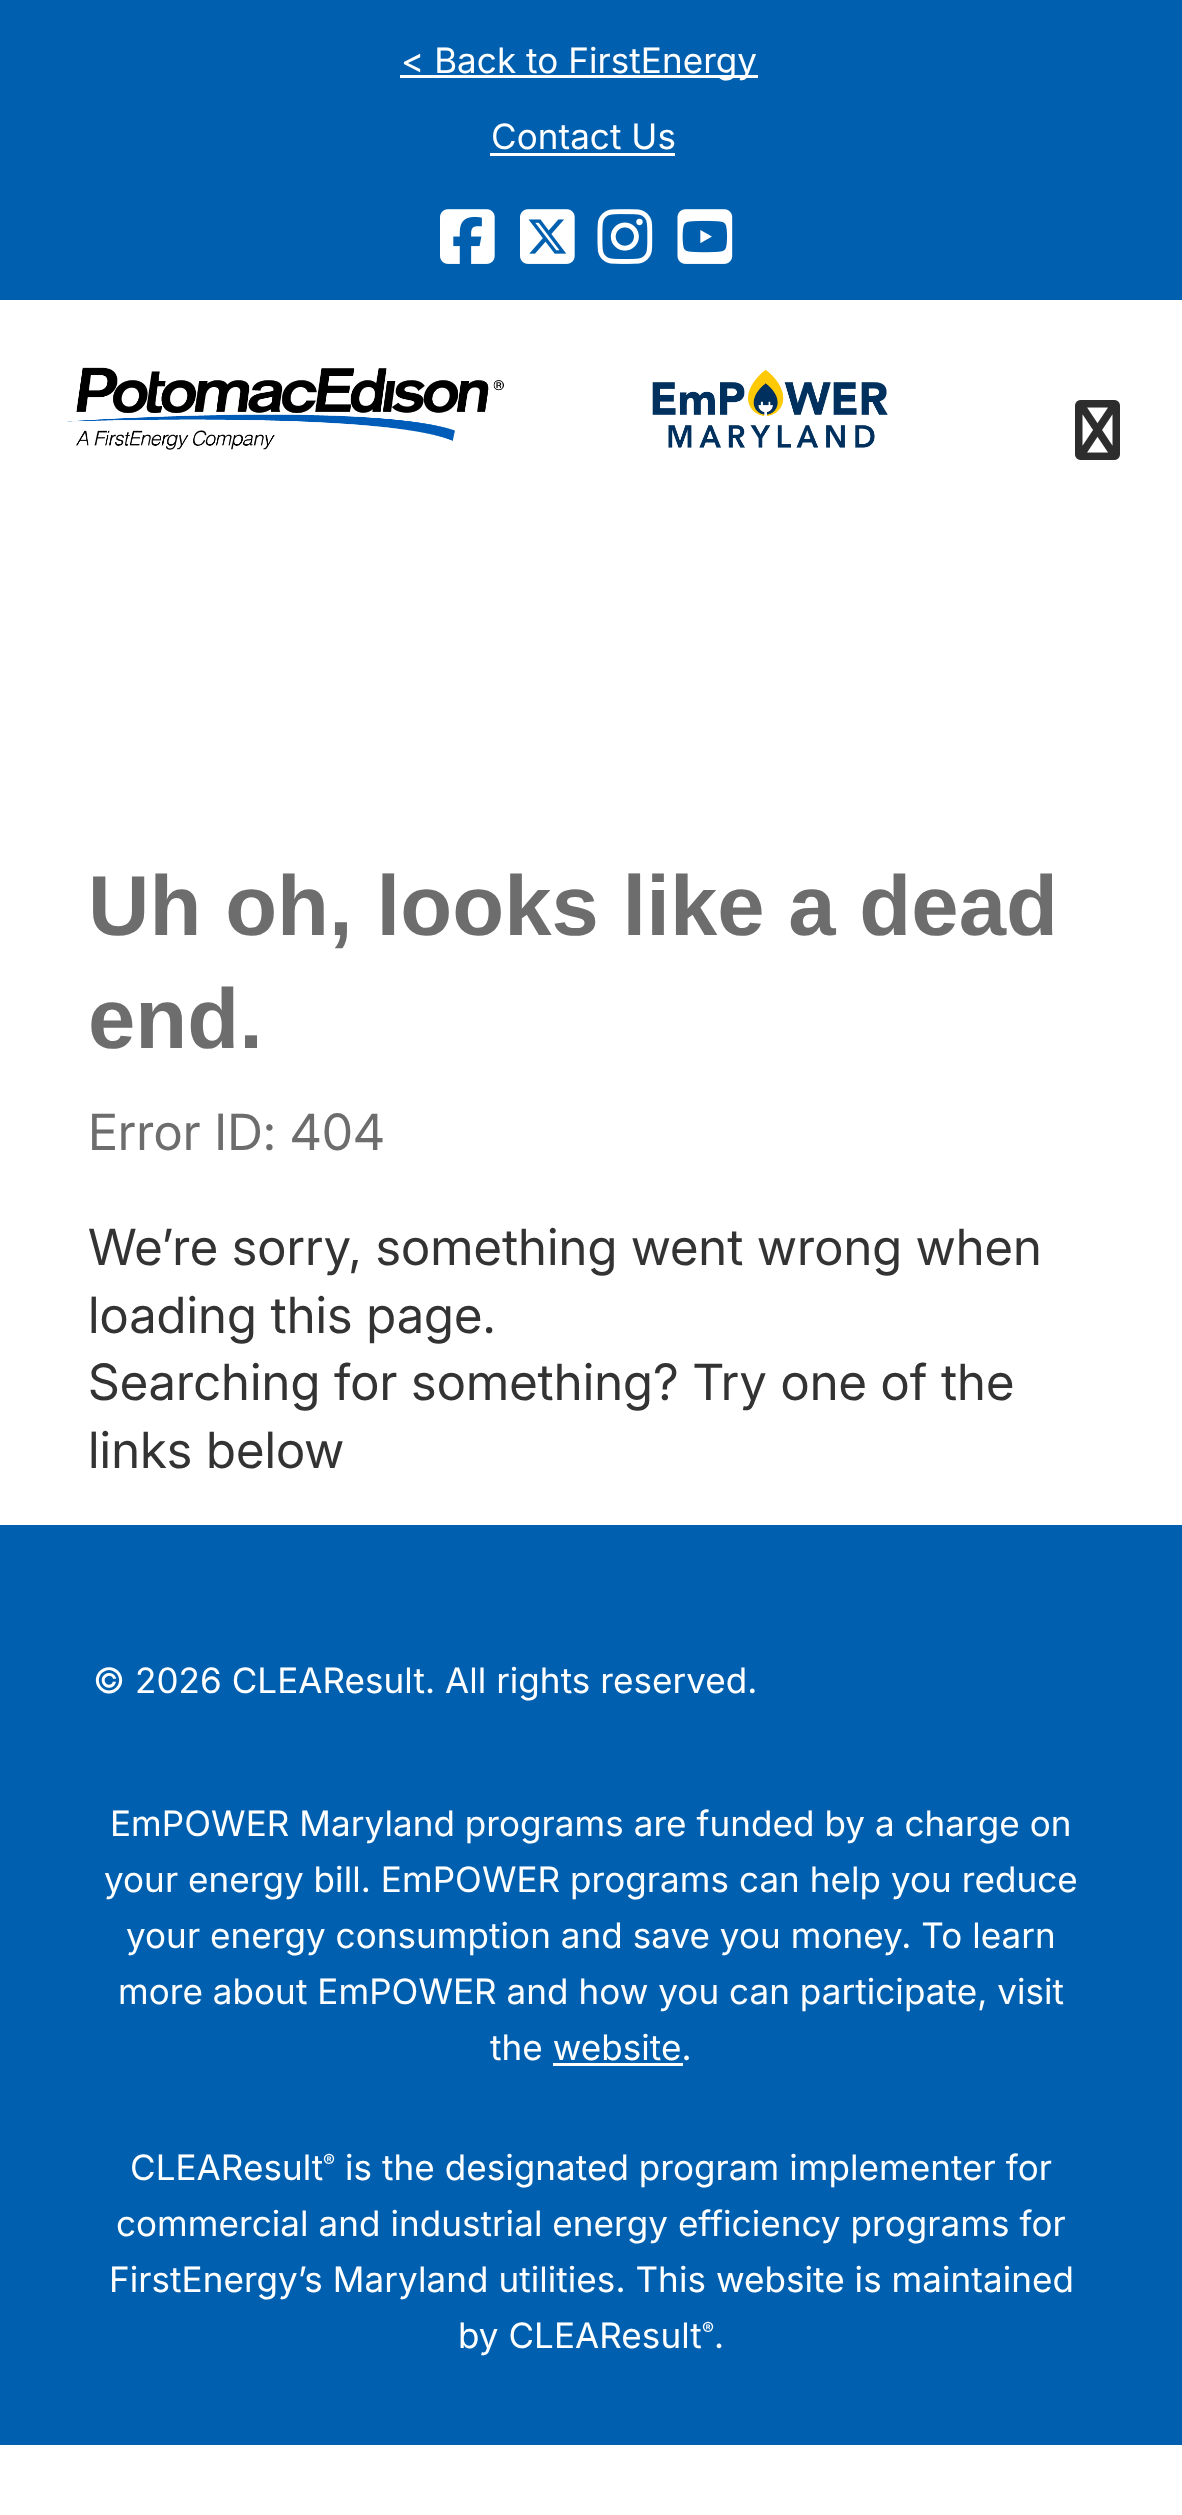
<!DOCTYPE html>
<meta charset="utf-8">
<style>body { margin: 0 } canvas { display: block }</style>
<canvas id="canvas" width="1182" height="2515"></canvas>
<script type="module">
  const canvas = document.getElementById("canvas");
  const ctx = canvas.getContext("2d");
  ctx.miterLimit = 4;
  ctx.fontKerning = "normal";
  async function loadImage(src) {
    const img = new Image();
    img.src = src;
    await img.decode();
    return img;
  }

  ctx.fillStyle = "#ffffff";
  ctx.fillRect(0, 0, 1182, 2515);
  ctx.fillStyle = "#0060af";
  ctx.fillRect(0, 0, 1182, 300);
  ctx.fillStyle = "#ffffff";
  ctx.fillRect(400, 75, 358, 3);
  ctx.letterSpacing = "0.07px";
  ctx.font = "35px 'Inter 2'";
  ctx.fillText("< Back to FirstEnergy", 401, 73);
  ctx.fillText("Contact Us", 491, 149);
  ctx.fillRect(490, 153, 185, 3);
  ctx.drawImage(await loadImage("img1.png"), 440, 209, 55, 55);
  ctx.drawImage(await loadImage("img2.png"), 520, 209, 55, 55);
  ctx.drawImage(await loadImage("img3.png"), 597, 209, 56, 55);
  ctx.drawImage(await loadImage("img4.png"), 677, 209, 56, 55);
  ctx.drawImage(await loadImage("img5.png"), 67, 367, 821, 83);
  ctx.drawImage(await loadImage("img6.png"), 1075, 400, 45, 60);
  ctx.font = "bold 85px Liberation Sans";
  ctx.fillStyle = "#6d6d6d";
  ctx.fillText("Uh oh, looks like a dead", 88, 935);
  ctx.fillText("end.", 88, 1048);
  ctx.font = "50px Inter";
  ctx.fillText("Error ID: 404", 88, 1150);
  ctx.fillStyle = "#333333";
  ctx.fillText("We’re sorry, something went wrong when", 88, 1265);
  ctx.fillText("loading this page.", 88, 1333);
  ctx.fillText("Searching for something? Try one of the", 88, 1400);
  ctx.fillText("links below", 88, 1468);
  ctx.fillStyle = "#0060af";
  ctx.fillRect(0, 1525, 1182, 920);
  ctx.font = "35px 'Inter 2'";
  ctx.fillStyle = "#ffffff";
  ctx.fillText("© 2026 CLEAResult. All rights reserved.", 93, 1693);
  ctx.fillText("EmPOWER Maryland programs are funded by a charge on", 110, 1836);
  ctx.fillText("your energy bill. EmPOWER programs can help you reduce", 104, 1892);
  ctx.fillText("your energy consumption and save you money. To learn", 126, 1948);
  ctx.fillText("more about EmPOWER and how you can participate, visit", 118, 2004);
  ctx.fillText("the website.", 490, 2060);
  ctx.fillRect(553, 2063, 130, 3);
  ctx.fillText("CLEAResult", 130, 2180);
  ctx.font = "18px 'Inter 2'";
  ctx.fillText("®", 323, 2167);
  ctx.font = "35px 'Inter 2'";
  ctx.fillText("is the designated program implementer for", 345, 2180);
  ctx.fillText("commercial and industrial energy efficiency programs for", 116, 2236);
  ctx.fillText("FirstEnergy’s Maryland utilities. This website is maintained", 109, 2292);
  ctx.fillText("by CLEAResult", 458, 2348);
  ctx.font = "18px 'Inter 2'";
  ctx.fillText("®", 702, 2335);
  ctx.font = "35px 'Inter 2'";
  ctx.fillText(".", 714, 2348);
</script>
